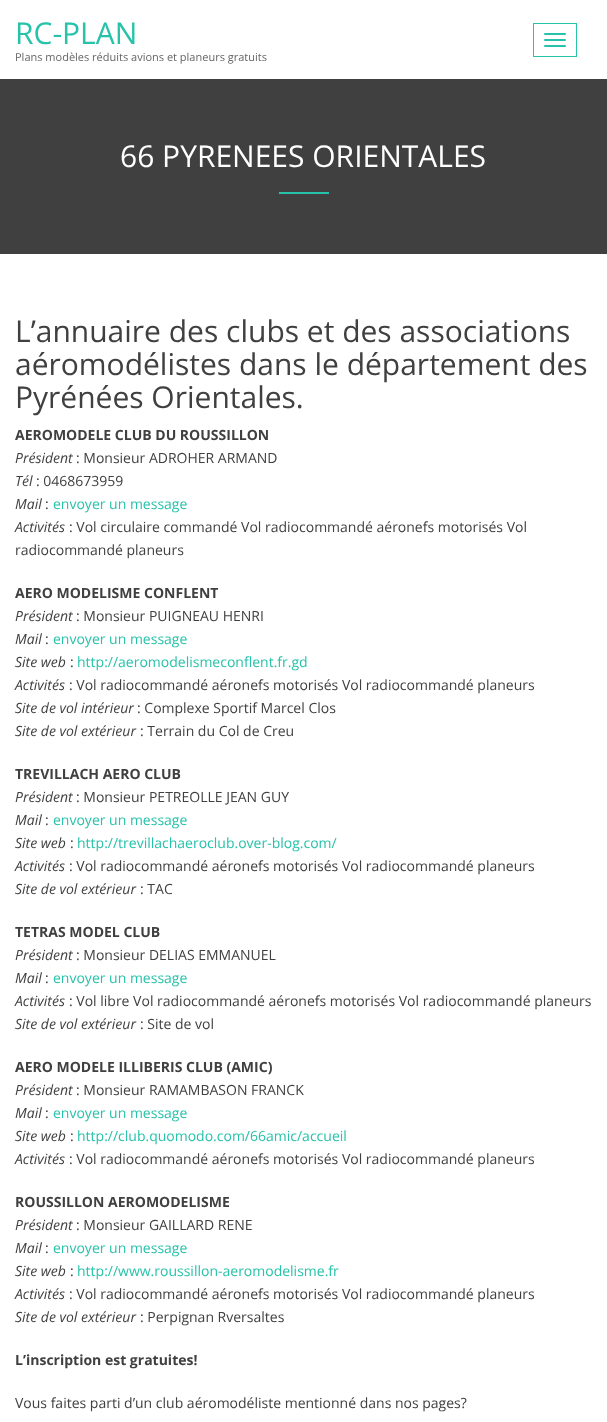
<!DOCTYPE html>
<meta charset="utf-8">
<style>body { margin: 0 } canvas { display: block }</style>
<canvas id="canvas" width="607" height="1422"></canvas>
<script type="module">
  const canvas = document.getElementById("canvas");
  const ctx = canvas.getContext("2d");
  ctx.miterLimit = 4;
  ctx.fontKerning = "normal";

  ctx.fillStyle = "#ffffff";
  ctx.fillRect(0, 0, 607, 1422);
  ctx.font = "30px Open Sans";
  ctx.fillStyle = "#27c2aa";
  ctx.fillText("RC-PLAN", 15, 44);
  ctx.font = "11px Open Sans";
  ctx.fillStyle = "#666666";
  ctx.fillText("Plans modèles réduits avions et planeurs gratuits", 15, 61);
  ctx.strokeStyle = "#27c2aa";
  ctx.strokeRect(533.5, 23.5, 43, 33);
  ctx.fillStyle = "#27c2aa";
  ctx.beginPath();
  ctx.roundRect(544, 33, 22, 2, 1);
  ctx.fill();
  ctx.beginPath();
  ctx.roundRect(544, 39, 22, 2, 1);
  ctx.fill();
  ctx.beginPath();
  ctx.roundRect(544, 45, 22, 2, 1);
  ctx.fill();
  ctx.fillStyle = "#404040";
  ctx.fillRect(0, 79, 607, 175);
  ctx.font = "30px Open Sans";
  ctx.fillStyle = "#ffffff";
  ctx.fillText("66 PYRENEES ORIENTALES", 120, 167);
  ctx.fillStyle = "#27c2aa";
  ctx.fillRect(279, 192, 50, 2);
  ctx.fillStyle = "#404040";
  ctx.fillText("L’annuaire des clubs et des associations", 15, 342);
  ctx.fillText("aéromodélistes dans le département des", 15, 375);
  ctx.fillText("Pyrénées Orientales.", 15, 408);
  ctx.font = "bold 14px Open Sans";
  ctx.fillText("AEROMODELE CLUB DU ROUSSILLON", 15, 440);
  ctx.font = "italic 14px Open Sans";
  ctx.fillText("Président", 15, 463);
  ctx.font = "14px Open Sans";
  ctx.fillText(": Monsieur ADROHER ARMAND", 76, 463);
  ctx.font = "italic 14px Open Sans";
  ctx.fillText("Tél", 15, 486);
  ctx.font = "14px Open Sans";
  ctx.fillText(": 0468673959", 36, 486);
  ctx.font = "italic 14px Open Sans";
  ctx.fillText("Mail", 15, 509);
  ctx.font = "14px Open Sans";
  ctx.fillText(":", 45, 509);
  ctx.fillStyle = "#27c2aa";
  ctx.fillText("envoyer un message", 53, 509);
  ctx.font = "italic 14px Open Sans";
  ctx.fillStyle = "#404040";
  ctx.fillText("Activités", 15, 532);
  ctx.font = "14px Open Sans";
  ctx.fillText(": Vol circulaire commandé Vol radiocommandé aéronefs motorisés Vol", 69, 532);
  ctx.fillText("radiocommandé planeurs", 15, 555);
  ctx.font = "bold 14px Open Sans";
  ctx.fillText("AERO MODELISME CONFLENT", 15, 598);
  ctx.font = "italic 14px Open Sans";
  ctx.fillText("Président", 15, 621);
  ctx.font = "14px Open Sans";
  ctx.fillText(": Monsieur PUIGNEAU HENRI", 76, 621);
  ctx.font = "italic 14px Open Sans";
  ctx.fillText("Mail", 15, 644);
  ctx.font = "14px Open Sans";
  ctx.fillText(":", 45, 644);
  ctx.fillStyle = "#27c2aa";
  ctx.fillText("envoyer un message", 53, 644);
  ctx.font = "italic 14px Open Sans";
  ctx.fillStyle = "#404040";
  ctx.fillText("Site web", 15, 667);
  ctx.font = "14px Open Sans";
  ctx.fillText(":", 70, 667);
  ctx.fillStyle = "#27c2aa";
  ctx.fillText("http://aeromodelismeconflent.fr.gd", 77, 667);
  ctx.font = "italic 14px Open Sans";
  ctx.fillStyle = "#404040";
  ctx.fillText("Activités", 15, 690);
  ctx.font = "14px Open Sans";
  ctx.fillText(": Vol radiocommandé aéronefs motorisés Vol radiocommandé planeurs", 69, 690);
  ctx.font = "italic 14px Open Sans";
  ctx.fillText("Site de vol intérieur", 15, 713);
  ctx.font = "14px Open Sans";
  ctx.fillText(": Complexe Sportif Marcel Clos", 137, 713);
  ctx.font = "italic 14px Open Sans";
  ctx.fillText("Site de vol extérieur", 15, 736);
  ctx.font = "14px Open Sans";
  ctx.fillText(": Terrain du Col de Creu", 140, 736);
  ctx.font = "bold 14px Open Sans";
  ctx.fillText("TREVILLACH AERO CLUB", 15, 779);
  ctx.font = "italic 14px Open Sans";
  ctx.fillText("Président", 15, 802);
  ctx.font = "14px Open Sans";
  ctx.fillText(": Monsieur PETREOLLE JEAN GUY", 76, 802);
  ctx.font = "italic 14px Open Sans";
  ctx.fillText("Mail", 15, 825);
  ctx.font = "14px Open Sans";
  ctx.fillText(":", 45, 825);
  ctx.fillStyle = "#27c2aa";
  ctx.fillText("envoyer un message", 53, 825);
  ctx.font = "italic 14px Open Sans";
  ctx.fillStyle = "#404040";
  ctx.fillText("Site web", 15, 848);
  ctx.font = "14px Open Sans";
  ctx.fillText(":", 70, 848);
  ctx.fillStyle = "#27c2aa";
  ctx.fillText("http://trevillachaeroclub.over-blog.com/", 77, 848);
  ctx.font = "italic 14px Open Sans";
  ctx.fillStyle = "#404040";
  ctx.fillText("Activités", 15, 871);
  ctx.font = "14px Open Sans";
  ctx.fillText(": Vol radiocommandé aéronefs motorisés Vol radiocommandé planeurs", 69, 871);
  ctx.font = "italic 14px Open Sans";
  ctx.fillText("Site de vol extérieur", 15, 894);
  ctx.font = "14px Open Sans";
  ctx.fillText(": TAC", 140, 894);
  ctx.font = "bold 14px Open Sans";
  ctx.fillText("TETRAS MODEL CLUB", 15, 937);
  ctx.font = "italic 14px Open Sans";
  ctx.fillText("Président", 15, 960);
  ctx.font = "14px Open Sans";
  ctx.fillText(": Monsieur DELIAS EMMANUEL", 76, 960);
  ctx.font = "italic 14px Open Sans";
  ctx.fillText("Mail", 15, 983);
  ctx.font = "14px Open Sans";
  ctx.fillText(":", 45, 983);
  ctx.fillStyle = "#27c2aa";
  ctx.fillText("envoyer un message", 53, 983);
  ctx.font = "italic 14px Open Sans";
  ctx.fillStyle = "#404040";
  ctx.fillText("Activités", 15, 1006);
  ctx.font = "14px Open Sans";
  ctx.fillText(": Vol libre Vol radiocommandé aéronefs motorisés Vol radiocommandé planeurs", 69, 1006);
  ctx.font = "italic 14px Open Sans";
  ctx.fillText("Site de vol extérieur", 15, 1029);
  ctx.font = "14px Open Sans";
  ctx.fillText(": Site de vol", 140, 1029);
  ctx.font = "bold 14px Open Sans";
  ctx.fillText("AERO MODELE ILLIBERIS CLUB (AMIC)", 15, 1072);
  ctx.font = "italic 14px Open Sans";
  ctx.fillText("Président", 15, 1095);
  ctx.font = "14px Open Sans";
  ctx.fillText(": Monsieur RAMAMBASON FRANCK", 76, 1095);
  ctx.font = "italic 14px Open Sans";
  ctx.fillText("Mail", 15, 1118);
  ctx.font = "14px Open Sans";
  ctx.fillText(":", 45, 1118);
  ctx.fillStyle = "#27c2aa";
  ctx.fillText("envoyer un message", 53, 1118);
  ctx.font = "italic 14px Open Sans";
  ctx.fillStyle = "#404040";
  ctx.fillText("Site web", 15, 1141);
  ctx.font = "14px Open Sans";
  ctx.fillText(":", 70, 1141);
  ctx.fillStyle = "#27c2aa";
  ctx.fillText("http://club.quomodo.com/66amic/accueil", 77, 1141);
  ctx.font = "italic 14px Open Sans";
  ctx.fillStyle = "#404040";
  ctx.fillText("Activités", 15, 1164);
  ctx.font = "14px Open Sans";
  ctx.fillText(": Vol radiocommandé aéronefs motorisés Vol radiocommandé planeurs", 69, 1164);
  ctx.font = "bold 14px Open Sans";
  ctx.fillText("ROUSSILLON AEROMODELISME", 15, 1207);
  ctx.font = "italic 14px Open Sans";
  ctx.fillText("Président", 15, 1230);
  ctx.font = "14px Open Sans";
  ctx.fillText(": Monsieur GAILLARD RENE", 76, 1230);
  ctx.font = "italic 14px Open Sans";
  ctx.fillText("Mail", 15, 1253);
  ctx.font = "14px Open Sans";
  ctx.fillText(":", 45, 1253);
  ctx.fillStyle = "#27c2aa";
  ctx.fillText("envoyer un message", 53, 1253);
  ctx.font = "italic 14px Open Sans";
  ctx.fillStyle = "#404040";
  ctx.fillText("Site web", 15, 1276);
  ctx.font = "14px Open Sans";
  ctx.fillText(":", 70, 1276);
  ctx.fillStyle = "#27c2aa";
  ctx.fillText("http://www.roussillon-aeromodelisme.fr", 77, 1276);
  ctx.font = "italic 14px Open Sans";
  ctx.fillStyle = "#404040";
  ctx.fillText("Activités", 15, 1299);
  ctx.font = "14px Open Sans";
  ctx.fillText(": Vol radiocommandé aéronefs motorisés Vol radiocommandé planeurs", 69, 1299);
  ctx.font = "italic 14px Open Sans";
  ctx.fillText("Site de vol extérieur", 15, 1322);
  ctx.font = "14px Open Sans";
  ctx.fillText(": Perpignan Rversaltes", 140, 1322);
  ctx.font = "bold 14px Open Sans";
  ctx.fillText("L’inscription est gratuites!", 15, 1365);
  ctx.font = "14px Open Sans";
  ctx.fillText("Vous faites parti d’un club aéromodéliste mentionné dans nos pages?", 15, 1408);
</script>
